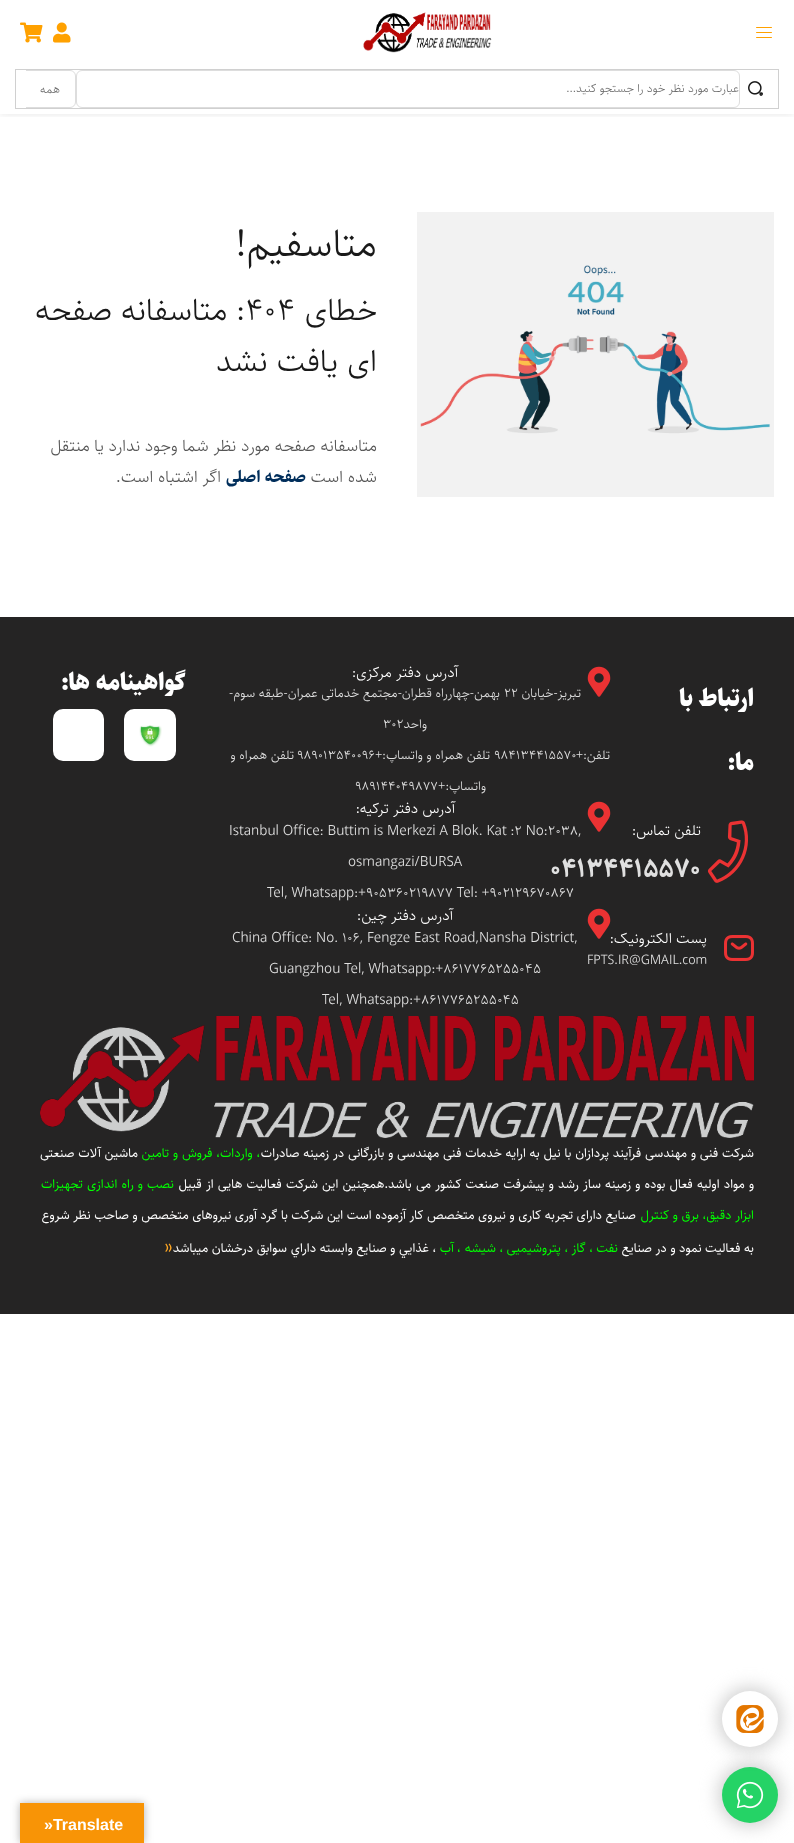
<!DOCTYPE html>
<meta charset="utf-8">
<style>body { margin: 0 } canvas { display: block }</style>
<canvas id="canvas" width="794" height="1843"></canvas>
<script type="module">
  const canvas = document.getElementById("canvas");
  const ctx = canvas.getContext("2d");
  ctx.miterLimit = 4;
  ctx.fontKerning = "normal";
  async function loadImage(src) {
    const img = new Image();
    img.src = src;
    await img.decode();
    return img;
  }

  ctx.fillStyle = "#ffffff";
  ctx.fillRect(0, 0, 794, 1843);
  ctx.save();
  ctx.beginPath();
  ctx.rect(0, 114, 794, 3);
  ctx.clip();
  ctx.fillStyle = "rgba(0, 0, 0, 0.1)";
  ctx.filter = "blur(4px)";
  ctx.beginPath();
  ctx.rect(0, 0, 794, 114);
  ctx.fill();
  ctx.filter = "none";
  ctx.restore();
  ctx.drawImage(await loadImage("img1.png"), 756, 27, 16, 11);
  ctx.drawImage(await loadImage("img2.png"), 363, 12, 129, 41);
  ctx.drawImage(await loadImage("img3.png"), 53, 22, 18, 21);
  ctx.drawImage(await loadImage("img4.png"), 20, 22, 23, 21);
  ctx.strokeStyle = "#d0d0d0";
  ctx.strokeRect(15.5, 69.5, 763, 39);
  ctx.drawImage(await loadImage("img5.png"), 748, 81, 15, 15);
  ctx.beginPath();
  ctx.roundRect(76.5, 70.5, 663, 37, 5.5);
  ctx.strokeStyle = "#dddddd";
  ctx.stroke();
  ctx.direction = "rtl";
  ctx.font = "300 12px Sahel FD";
  ctx.fillStyle = "#6b6b6b";
  ctx.fillText("عبارت مورد نظر خود را جستجو کنید...", 739, 92);
  ctx.save();
  ctx.beginPath();
  ctx.rect(26, 70, 50, 38);
  ctx.clip();
  ctx.beginPath();
  ctx.roundRect(-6.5, 70.5, 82, 37, 5.5);
  ctx.stroke();
  ctx.restore();
  ctx.fillText("همه", 60, 93);
  ctx.drawImage(await loadImage("img6.png"), 417, 212, 357, 285);
  ctx.font = "300 40px Sahel FD";
  ctx.fillStyle = "#191919";
  ctx.fillText("متاسفیم!", 377, 256);
  ctx.font = "300 32px Sahel FD";
  ctx.fillText("خطای", 377, 320);
  ctx.direction = "ltr";
  ctx.fillText("404", 245, 320);
  ctx.direction = "rtl";
  ctx.fillText(": متاسفانه صفحه", 245, 320);
  ctx.fillText("ای یافت نشد", 377, 371);
  ctx.font = "300 17px Sahel FD";
  ctx.fillStyle = "#555555";
  ctx.fillText("متاسفانه صفحه مورد نظر شما وجود ندارد یا منتقل", 377, 451);
  ctx.fillText("شده است", 377, 482);
  ctx.font = "bold 17px Sahel FD";
  ctx.fillStyle = "#002e5b";
  ctx.fillText("صفحه اصلی", 306, 482);
  ctx.font = "300 17px Sahel FD";
  ctx.fillStyle = "#555555";
  ctx.fillText("اگر اشتباه است.", 221, 482);
  ctx.fillStyle = "#252424";
  ctx.fillRect(0, 617, 794, 697);
  ctx.drawImage(await loadImage("img7.png"), 587, 666, 24, 31);
  ctx.font = "300 15px Sahel FD";
  ctx.fillStyle = "#ffffff";
  ctx.fillText("آدرس دفتر مرکزی:", 458, 677);
  ctx.font = "300 13px Sahel FD";
  ctx.fillStyle = "#e0e0e0";
  ctx.fillText("تبریز-خیابان", 581, 697);
  ctx.direction = "ltr";
  ctx.fillText("22", 504, 697);
  ctx.direction = "rtl";
  ctx.fillText("بهمن-چهارراه قطران-مجتمع خدماتی عمران-طبقه سوم-", 500, 697);
  ctx.fillText("واحد", 427, 728);
  ctx.direction = "ltr";
  ctx.fillText("302", 383, 728);
  ctx.direction = "rtl";
  ctx.fillText("تلفن:+", 610, 759);
  ctx.direction = "ltr";
  ctx.fillText("984134415570", 494, 759);
  ctx.direction = "rtl";
  ctx.fillText("تلفن همراه و واتساپ:+", 490, 759);
  ctx.direction = "ltr";
  ctx.fillText("989013540096", 297, 759);
  ctx.direction = "rtl";
  ctx.fillText("تلفن همراه و", 294, 759);
  ctx.fillText("واتساپ:+", 486, 790);
  ctx.direction = "ltr";
  ctx.fillText("989144049877", 355, 790);
  ctx.drawImage(await loadImage("img7.png"), 587, 801, 24, 31);
  ctx.direction = "rtl";
  ctx.font = "300 15px Sahel FD";
  ctx.fillStyle = "#ffffff";
  ctx.fillText("آدرس دفتر ترکیه:", 455, 813);
  ctx.direction = "ltr";
  ctx.font = "300 14px Sahel FD";
  ctx.fillStyle = "#e0e0e0";
  ctx.fillText("Istanbul Office: Buttim is Merkezi A Blok. Kat :2 No:2038,", 229, 835);
  ctx.fillText("osmangazi/BURSA", 348, 866);
  ctx.fillText("Tel, Whatsapp:+905360219877 Tel: +902129670867", 267, 897);
  ctx.direction = "rtl";
  ctx.font = "300 15px Sahel FD";
  ctx.fillStyle = "#ffffff";
  ctx.fillText("پست الکترونیک:", 707, 943);
  ctx.drawImage(await loadImage("img8.png"), 587, 908, 24, 31);
  ctx.fillText("آدرس دفتر چین:", 453, 920);
  ctx.direction = "ltr";
  ctx.font = "300 14px Sahel FD";
  ctx.fillStyle = "#e0e0e0";
  ctx.fillText("China Office: No. 106, Fengze East Road,Nansha District,", 232, 942);
  ctx.fillText("Guangzhou Tel, Whatsapp:+8617765255045", 269, 973);
  ctx.fillText("Tel, Whatsapp:+8617765255045", 322, 1004);
  ctx.direction = "rtl";
  ctx.font = "900 24px Sahel FD";
  ctx.fillStyle = "#ffffff";
  ctx.fillText("گواهینامه ها:", 186, 690);
  ctx.beginPath();
  ctx.roundRect(124, 709, 52, 52, 10);
  ctx.fill();
  ctx.drawImage(await loadImage("img9.png"), 139, 725, 23, 22);
  ctx.beginPath();
  ctx.roundRect(53, 709, 51, 52, 10);
  ctx.fill();
  ctx.fillText("ارتباط با", 754, 706);
  ctx.fillText("ما:", 754, 770);
  ctx.drawImage(await loadImage("img10.png"), 707, 820, 41, 63);
  ctx.font = "300 15px Sahel FD";
  ctx.fillText("تلفن تماس:", 701, 835);
  ctx.direction = "ltr";
  ctx.font = "bold 26px Sahel FD";
  ctx.fillStyle = "#e0e0e0";
  ctx.fillText("04134415570", 550, 877);
  ctx.drawImage(await loadImage("img11.png"), 724, 935, 30, 26);
  ctx.font = "300 13px Sahel FD";
  ctx.fillText("FPTS.IR@GMAIL.com", 587, 964);
  ctx.drawImage(await loadImage("img12.png"), 40, 1016, 714, 122);
  ctx.wordSpacing = "0.25px";
  ctx.direction = "rtl";
  ctx.font = "13px Sahel FD";
  ctx.fillStyle = "#ffffff";
  ctx.fillText("شرکت فنی و مهندسی فرآیند پردازان با نيل به ارايه خدمات فنی مهندسی و بازرگانی در زمينه صادرات", 754, 1157);
  ctx.fillStyle = "#00ff00";
  ctx.fillText("، واردات، فروش و تامین", 260, 1157);
  ctx.fillStyle = "#ffffff";
  ctx.fillText("ماشین آلات صنعتی", 138, 1157);
  ctx.wordSpacing = "0.6px";
  ctx.fillText("و مواد اولیه فعال بوده و زمینه ساز رشد و پیشرفت صنعت کشور می باشد.همچنین این شرکت فعالیت هایی از قبیل", 754, 1188);
  ctx.wordSpacing = "0.5px";
  ctx.fillStyle = "#00ff00";
  ctx.fillText("نصب و راه اندازی تجهيزات", 174, 1188);
  ctx.wordSpacing = "0px";
  ctx.fillText("ابزار دقيق، برق و كنترل", 754, 1219);
  ctx.fillStyle = "#ffffff";
  ctx.fillText("صنايع دارای تجربه كاری و نيروی متخصص كار آزموده است این شرکت با گرد آوری نیروهای متخصص و صاحب نظر شروع", 636, 1219);
  ctx.fillText("به فعالیت نمود و در صنايع", 754, 1252);
  ctx.fillStyle = "#00ff00";
  ctx.fillText("نفت ، گاز ، پتروشيميی", 618, 1252);
  ctx.fillText("، شیشه", 503, 1252);
  ctx.direction = "ltr";
  ctx.fillText("،", 457, 1252);
  ctx.direction = "rtl";
  ctx.fillText("آب", 454, 1252);
  ctx.fillStyle = "#ffffff";
  ctx.fillText("، غذايي و صنايع وابسته داراي سوابق درخشان ميباشد", 436, 1252);
  ctx.direction = "ltr";
  ctx.font = "19px Sahel FD";
  ctx.fillStyle = "#ffa724";
  ctx.fillText("»", 164, 1252);
  ctx.fillStyle = "#cccccc";
  ctx.filter = "blur(9px)";
  ctx.beginPath();
  ctx.roundRect(719, 1764, 62, 62, 31);
  ctx.fill();
  ctx.filter = "none";
  ctx.fillStyle = "#25d366";
  ctx.beginPath();
  ctx.arc(750, 1795, 28, 0, Math.PI * 2);
  ctx.fill();
  ctx.fillStyle = "#cccccc";
  ctx.filter = "blur(9px)";
  ctx.beginPath();
  ctx.roundRect(719, 1688, 62, 62, 31);
  ctx.fill();
  ctx.filter = "none";
  ctx.fillStyle = "#ffffff";
  ctx.beginPath();
  ctx.arc(750, 1719, 28, 0, Math.PI * 2);
  ctx.fill();
  ctx.drawImage(await loadImage("img13.png"), 736, 1705, 28, 28);
  ctx.drawImage(await loadImage("img14.png"), 736, 1781, 28, 28);
  ctx.fillStyle = "rgba(0, 0, 0, 0.3)";
  ctx.filter = "blur(4.5px)";
  ctx.beginPath();
  ctx.rect(20, 1803, 124, 40);
  ctx.fill();
  ctx.filter = "none";
  ctx.fillStyle = "#f89406";
  ctx.fillRect(20, 1803, 124, 40);
  ctx.font = "bold 16px Liberation Sans";
  ctx.fillStyle = "#ffffff";
  ctx.fillText("»Translate", 44, 1830);
</script>
